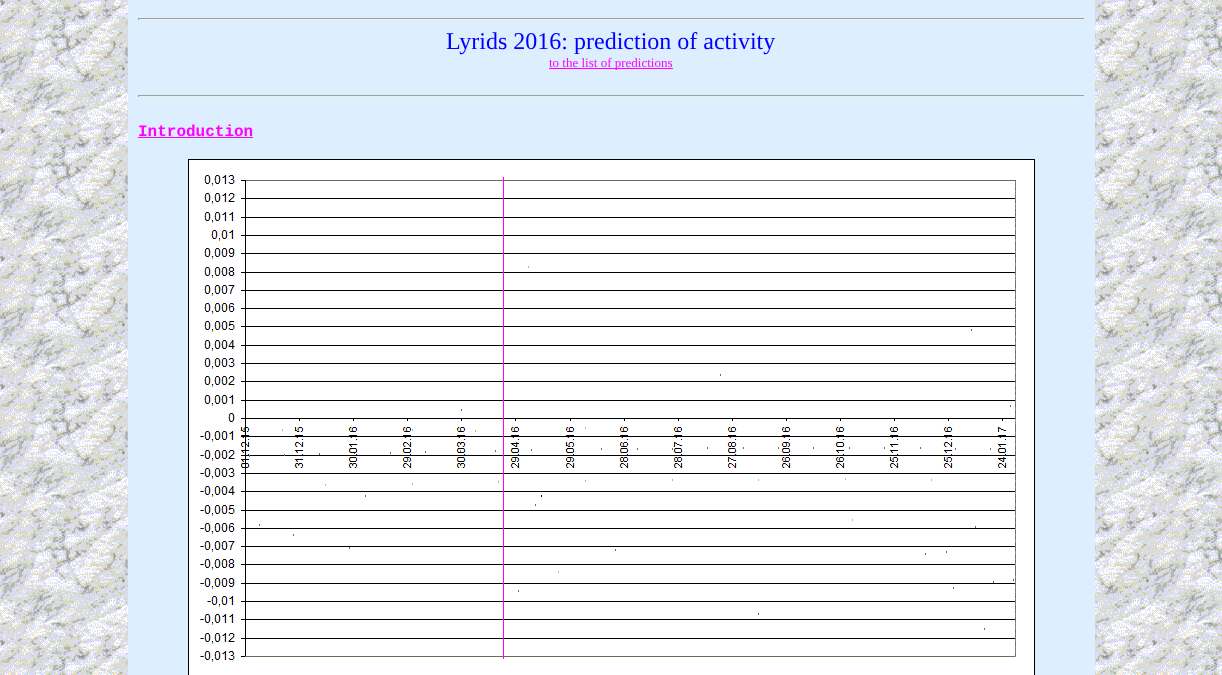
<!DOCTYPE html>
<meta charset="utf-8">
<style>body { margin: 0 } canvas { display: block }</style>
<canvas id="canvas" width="1222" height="675"></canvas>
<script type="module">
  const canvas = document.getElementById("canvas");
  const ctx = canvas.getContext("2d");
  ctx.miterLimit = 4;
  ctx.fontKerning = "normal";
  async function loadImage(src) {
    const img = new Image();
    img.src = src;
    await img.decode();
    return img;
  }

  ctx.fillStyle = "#ffffff";
  ctx.fillRect(0, 0, 1222, 675);
  ctx.drawImage(await loadImage("img1.png"), 0, 0, 1222, 675);
  ctx.fillStyle = "#ddeeff";
  ctx.fillRect(128, 0, 967, 675);
  ctx.fillStyle = "#9f9f9f";
  ctx.fillRect(138, 18, 947, 1);
  ctx.fillStyle = "#eeeeee";
  ctx.fillRect(1084, 18, 1, 2);
  ctx.fillRect(138, 19, 947, 1);
  ctx.fillStyle = "#9f9f9f";
  ctx.fillRect(138, 18, 1, 2);
  ctx.font = "24px Liberation Serif";
  ctx.fillStyle = "#0000ff";
  ctx.fillText("Lyrids 2016: prediction of activity", 446, 49);
  ctx.fillStyle = "#ff00ff";
  ctx.fillRect(549, 68, 124, 1);
  ctx.font = "13px Liberation Serif";
  ctx.fillText("to the list of predictions", 549, 67);
  ctx.fillStyle = "#9f9f9f";
  ctx.fillRect(138, 95, 947, 1);
  ctx.fillStyle = "#eeeeee";
  ctx.fillRect(1084, 95, 1, 2);
  ctx.fillRect(138, 96, 947, 1);
  ctx.fillStyle = "#9f9f9f";
  ctx.fillRect(138, 95, 1, 2);
  ctx.font = "bold 16px Liberation Mono";
  ctx.fillStyle = "#ff00ff";
  ctx.fillText("Introduction", 138, 136);
  ctx.fillRect(138, 137, 115, 1);
  ctx.drawImage(await loadImage("img2.png"), 188, 159, 847, 516);
</script>
